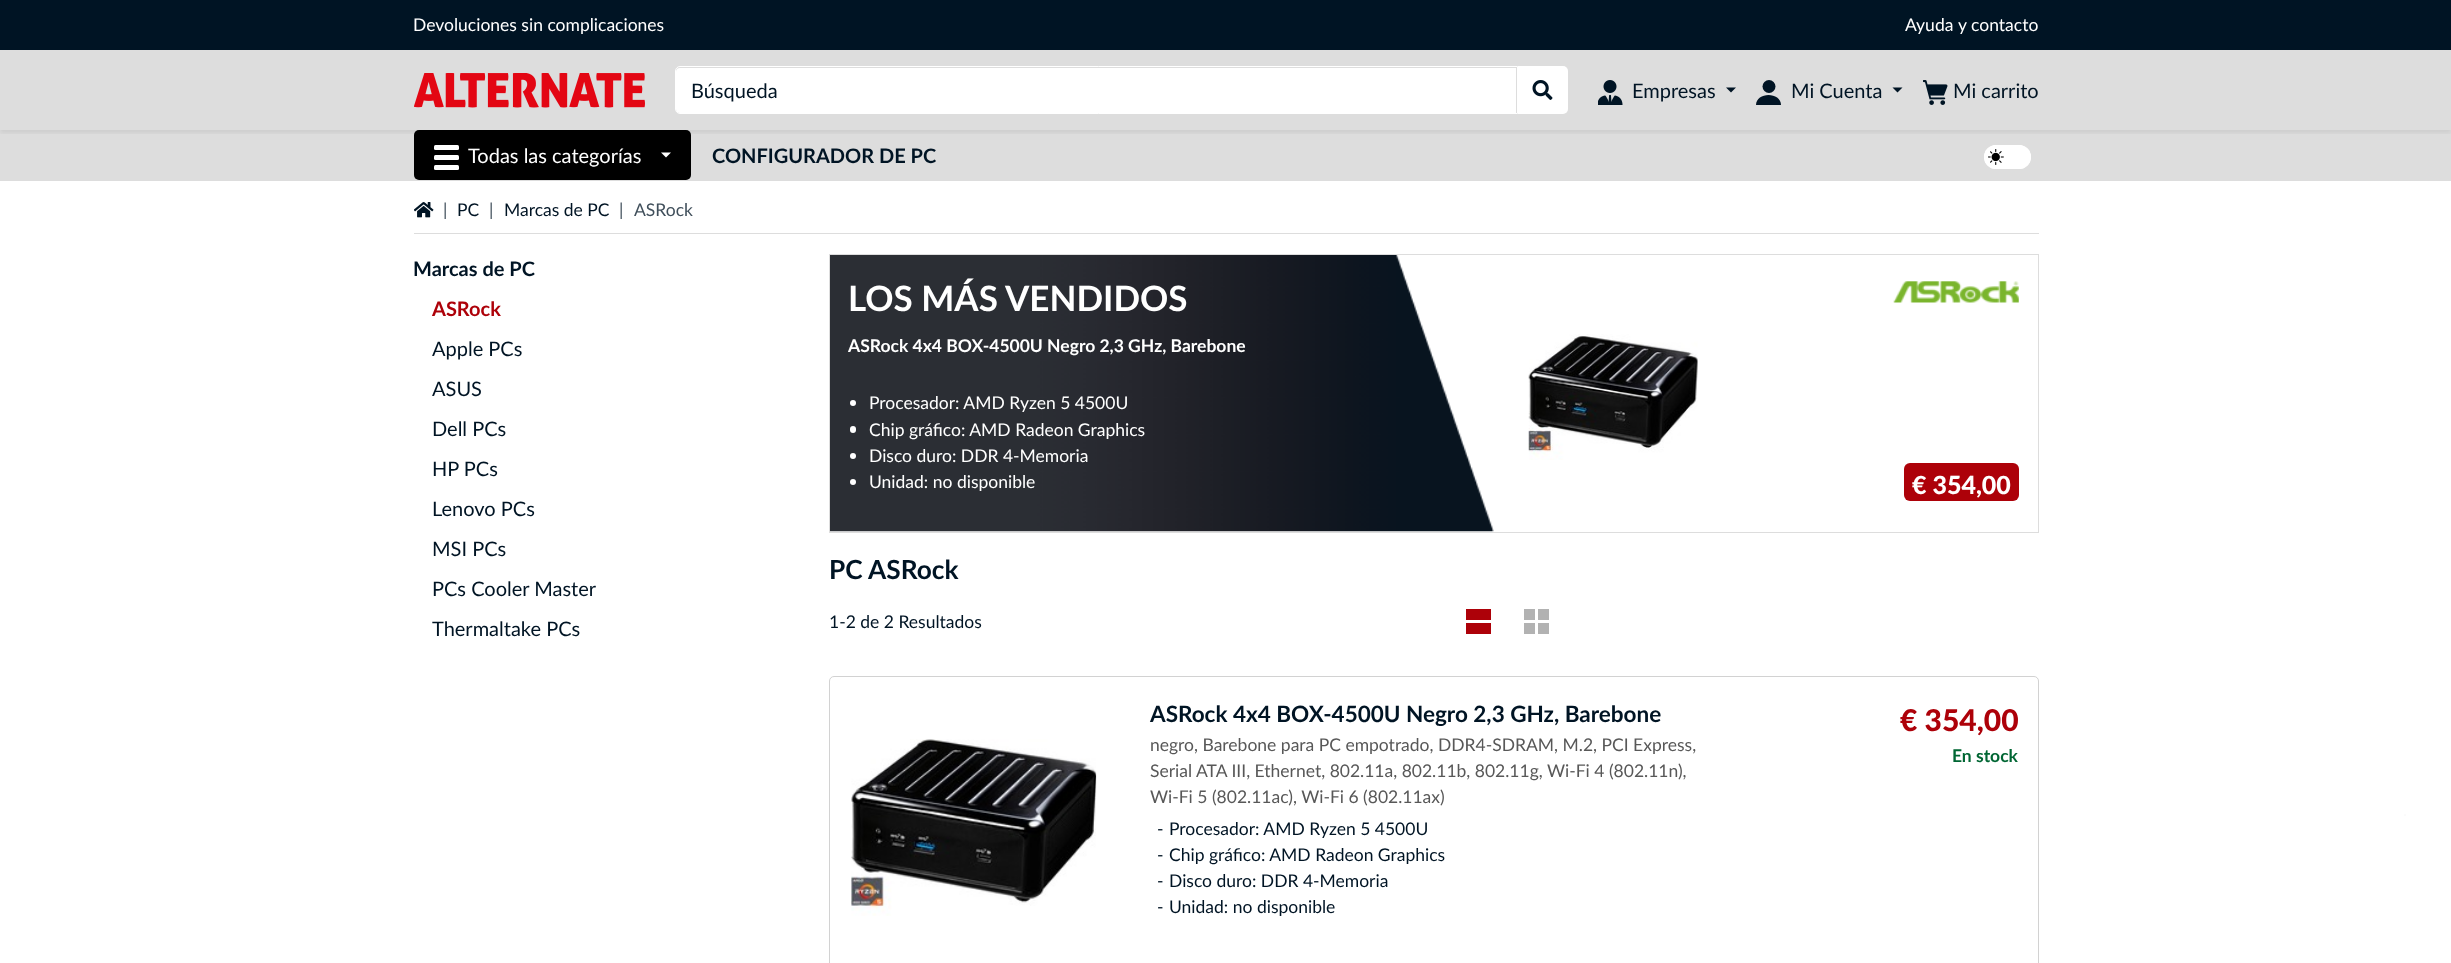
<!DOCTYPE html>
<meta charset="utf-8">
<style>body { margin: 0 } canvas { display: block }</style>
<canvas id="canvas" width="2451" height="963"></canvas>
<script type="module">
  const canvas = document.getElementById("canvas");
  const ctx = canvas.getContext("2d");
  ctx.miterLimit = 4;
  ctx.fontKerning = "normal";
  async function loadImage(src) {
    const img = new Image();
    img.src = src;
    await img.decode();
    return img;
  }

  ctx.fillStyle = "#ffffff";
  ctx.fillRect(0, 0, 2451, 963);
  ctx.fillStyle = "#001424";
  ctx.fillRect(0, 0, 2451, 50);
  ctx.font = "17.5px Lato";
  ctx.fillStyle = "#ffffff";
  ctx.fillText("Devoluciones sin complicaciones", 413, 31);
  ctx.fillText("Ayuda", 1905, 31);
  ctx.fillText("y contacto", 1958, 31);
  ctx.fillStyle = "#dddddd";
  ctx.fillRect(0, 50, 2451, 131);
  ctx.save();
  ctx.beginPath();
  ctx.rect(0, 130, 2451, 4);
  ctx.clip();
  ctx.fillStyle = "rgba(0, 0, 0, 0.07)";
  ctx.filter = "blur(2.5px)";
  ctx.beginPath();
  ctx.rect(0, 53, 2451, 80);
  ctx.fill();
  ctx.filter = "none";
  ctx.restore();
  ctx.drawImage(await loadImage("img1.png"), 414, 73, 231, 35);
  ctx.fillStyle = "#ffffff";
  ctx.beginPath();
  ctx.roundRect(676, 68, 840, 45, [4, 0, 0, 4]);
  ctx.fill();
  ctx.beginPath();
  ctx.roundRect(675.5, 66.5, 842, 47, [4.5, 0, 0, 4.5]);
  ctx.strokeStyle = "#ffffff";
  ctx.stroke();
  ctx.font = "20px Lato";
  ctx.fillStyle = "#001424";
  ctx.fillText("Búsqueda", 691, 98);
  ctx.fillStyle = "#ffffff";
  ctx.beginPath();
  ctx.roundRect(1518, 66, 50, 48, [0, 5, 5, 0]);
  ctx.fill();
  ctx.drawImage(await loadImage("img2.png"), 1532, 80, 21, 20);
  ctx.drawImage(await loadImage("img3.png"), 1598, 80, 25, 25);
  ctx.fillStyle = "#001424";
  ctx.fillText("Empresas", 1632, 98);
  ctx.beginPath();
  ctx.moveTo(1726, 87.5);
  ctx.lineTo(1736, 87.5);
  ctx.lineTo(1731, 92.5);
  ctx.closePath();
  ctx.fill();
  ctx.beginPath();
  ctx.arc(1769, 86.5, 6.5, 0, Math.PI * 2);
  ctx.fill();
  ctx.fillText("Mi Cuenta", 1791, 98);
  ctx.beginPath();
  ctx.moveTo(1892.5, 87.5);
  ctx.lineTo(1902.5, 87.5);
  ctx.lineTo(1897.5, 92.5);
  ctx.closePath();
  ctx.fill();
  ctx.beginPath();
  ctx.moveTo(1781, 105);
  ctx.lineTo(1756, 105);
  ctx.bezierCurveTo(1756, 91.5, 1781, 91.5, 1781, 105);
  ctx.closePath();
  ctx.fill();
  ctx.drawImage(await loadImage("img4.png"), 1923, 80, 25, 25);
  ctx.fillText("Mi carrito", 1953, 98);
  ctx.fillStyle = "#000000";
  ctx.beginPath();
  ctx.roundRect(414, 130, 277, 50, 5);
  ctx.fill();
  ctx.fillStyle = "#ffffff";
  ctx.beginPath();
  ctx.roundRect(434, 145, 25, 5, 1.5);
  ctx.fill();
  ctx.beginPath();
  ctx.roundRect(434, 155, 25, 5, 1.5);
  ctx.fill();
  ctx.fillText("Todas las categorías", 468, 163);
  ctx.beginPath();
  ctx.moveTo(661, 152.5);
  ctx.lineTo(671, 152.5);
  ctx.lineTo(666, 157.5);
  ctx.closePath();
  ctx.fill();
  ctx.beginPath();
  ctx.roundRect(434, 165, 25, 5, 1.5);
  ctx.fill();
  ctx.font = "bold 20px Lato";
  ctx.fillStyle = "#001424";
  ctx.fillText("CONFIGURADOR DE PC", 712, 163);
  ctx.fillStyle = "#ffffff";
  ctx.beginPath();
  ctx.roundRect(1984, 145, 47, 24, 12);
  ctx.fill();
  ctx.drawImage(await loadImage("img5.png"), 1988, 149, 16, 16);
  ctx.beginPath();
  ctx.roundRect(1986, 147, 43, 20, 10);
  ctx.lineWidth = 4;
  ctx.stroke();
  ctx.fillStyle = "#dddddd";
  ctx.fillRect(414, 233, 1625, 1);
  ctx.drawImage(await loadImage("img6.png"), 414, 202, 20, 16);
  ctx.font = "17.5px Lato";
  ctx.fillStyle = "#404f5b";
  ctx.fillText("|", 443, 216);
  ctx.fillStyle = "#001424";
  ctx.fillText("PC", 457, 216);
  ctx.fillStyle = "#404f5b";
  ctx.fillText("|", 489, 216);
  ctx.fillStyle = "#001424";
  ctx.fillText("Marcas de PC", 504, 216);
  ctx.fillStyle = "#404f5b";
  ctx.fillText("|", 619, 216);
  ctx.fillText("ASRock", 634, 216);
  ctx.font = "bold 20px Lato";
  ctx.fillStyle = "#001424";
  ctx.fillText("Marcas de PC", 413, 276);
  ctx.fillStyle = "#ad0109";
  ctx.fillText("ASRock", 432, 316);
  ctx.font = "20px Lato";
  ctx.fillStyle = "#001424";
  ctx.fillText("Apple PCs", 432, 356);
  ctx.fillText("ASUS", 432, 396);
  ctx.fillText("Dell PCs", 432, 436);
  ctx.fillText("HP PCs", 432, 476);
  ctx.fillText("Lenovo PCs", 432, 516);
  ctx.fillText("MSI PCs", 432, 556);
  ctx.fillText("PCs Cooler Master", 432, 596);
  ctx.fillText("Thermaltake PCs", 432, 636);
  ctx.strokeStyle = "#dddddd";
  ctx.lineWidth = 1;
  ctx.strokeRect(829.5, 254.5, 1209, 278);
  ctx.drawImage(await loadImage("img7.png"), 830, 255, 664, 277);
  ctx.font = "bold 35px Lato";
  ctx.fillStyle = "#ffffff";
  ctx.fillText("LOS MÁS VENDIDOS", 848, 311);
  ctx.font = "bold 17.5px Lato";
  ctx.fillText("ASRock 4x4 BOX-4500U Negro 2,3 GHz, Barebone", 848, 352);
  ctx.beginPath();
  ctx.arc(853, 403, 3, 0, Math.PI * 2);
  ctx.fill();
  ctx.font = "17.5px Lato";
  ctx.fillText("Procesador: AMD Ryzen 5 4500U", 869, 409);
  ctx.beginPath();
  ctx.roundRect(850, 426, 6, 7, 3);
  ctx.fill();
  ctx.fillText("Chip gráfico: AMD Radeon Graphics", 869, 436);
  ctx.beginPath();
  ctx.arc(853, 456, 3, 0, Math.PI * 2);
  ctx.fill();
  ctx.fillText("Disco duro: DDR 4-Memoria", 869, 462);
  ctx.beginPath();
  ctx.arc(853, 482, 3, 0, Math.PI * 2);
  ctx.fill();
  ctx.fillText("Unidad: no disponible", 869, 488);
  ctx.drawImage(await loadImage("img8.png"), 1893, 281, 126, 22);
  ctx.drawImage(await loadImage("img9.png"), 1528, 334, 170, 126);
  ctx.fillStyle = "#ad0109";
  ctx.beginPath();
  ctx.roundRect(1904, 463, 115, 38, 6);
  ctx.fill();
  ctx.font = "900 25px Lato";
  ctx.fillStyle = "#ffffff";
  ctx.fillText("€ 354,00", 1912, 494);
  ctx.font = "bold 26.25px Lato";
  ctx.fillStyle = "#001424";
  ctx.fillText("PC ASRock", 829, 579);
  ctx.font = "17.5px Lato";
  ctx.fillText("1-2 de 2 Resultados", 829, 628);
  ctx.fillStyle = "#ad0109";
  ctx.fillRect(1466, 609, 25, 11);
  ctx.fillRect(1466, 623, 25, 11);
  ctx.fillStyle = "#b2b2b2";
  ctx.fillRect(1524, 609, 11, 11);
  ctx.fillRect(1538, 609, 11, 11);
  ctx.fillRect(1524, 623, 11, 11);
  ctx.fillRect(1538, 623, 11, 11);
  ctx.beginPath();
  ctx.roundRect(829.5, 676.5, 1209, 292, 4.5);
  ctx.strokeStyle = "#d2d2d2";
  ctx.stroke();
  ctx.drawImage(await loadImage("img10.png"), 851, 739, 246, 177);
  ctx.font = "bold 22.5px Lato";
  ctx.fillStyle = "#001424";
  ctx.fillText("ASRock 4x4 BOX-4500U Negro 2,3 GHz, Barebone", 1150, 722);
  ctx.font = "17.5px Lato";
  ctx.fillStyle = "#585858";
  ctx.fillText("negro, Barebone para PC empotrado, DDR4-SDRAM, M.2, PCI Express,", 1150, 751);
  ctx.fillText("Serial ATA III, Ethernet, 802.11a, 802.11b, 802.11g, Wi-Fi 4 (802.11n),", 1150, 777);
  ctx.fillText("Wi-Fi 5 (802.11ac), Wi-Fi 6 (802.11ax)", 1150, 803);
  ctx.fillStyle = "#001424";
  ctx.fillText("-", 1157, 835);
  ctx.fillText("Procesador: AMD Ryzen 5 4500U", 1169, 835);
  ctx.fillText("-", 1157, 861);
  ctx.fillText("Chip gráfico: AMD Radeon Graphics", 1169, 861);
  ctx.fillText("-", 1157, 887);
  ctx.fillText("Disco duro: DDR 4-Memoria", 1169, 887);
  ctx.fillText("-", 1157, 913);
  ctx.fillText("Unidad: no disponible", 1169, 913);
  ctx.font = "900 30px Lato";
  ctx.fillStyle = "#ad0109";
  ctx.fillText("€ 354,00", 1900, 731);
  ctx.font = "bold 17.5px Lato";
  ctx.fillStyle = "#006633";
  ctx.fillText("En stock", 1952, 762);
  ctx.drawImage(await loadImage("img11.png"), 2404, 814, 2, 2);
</script>
